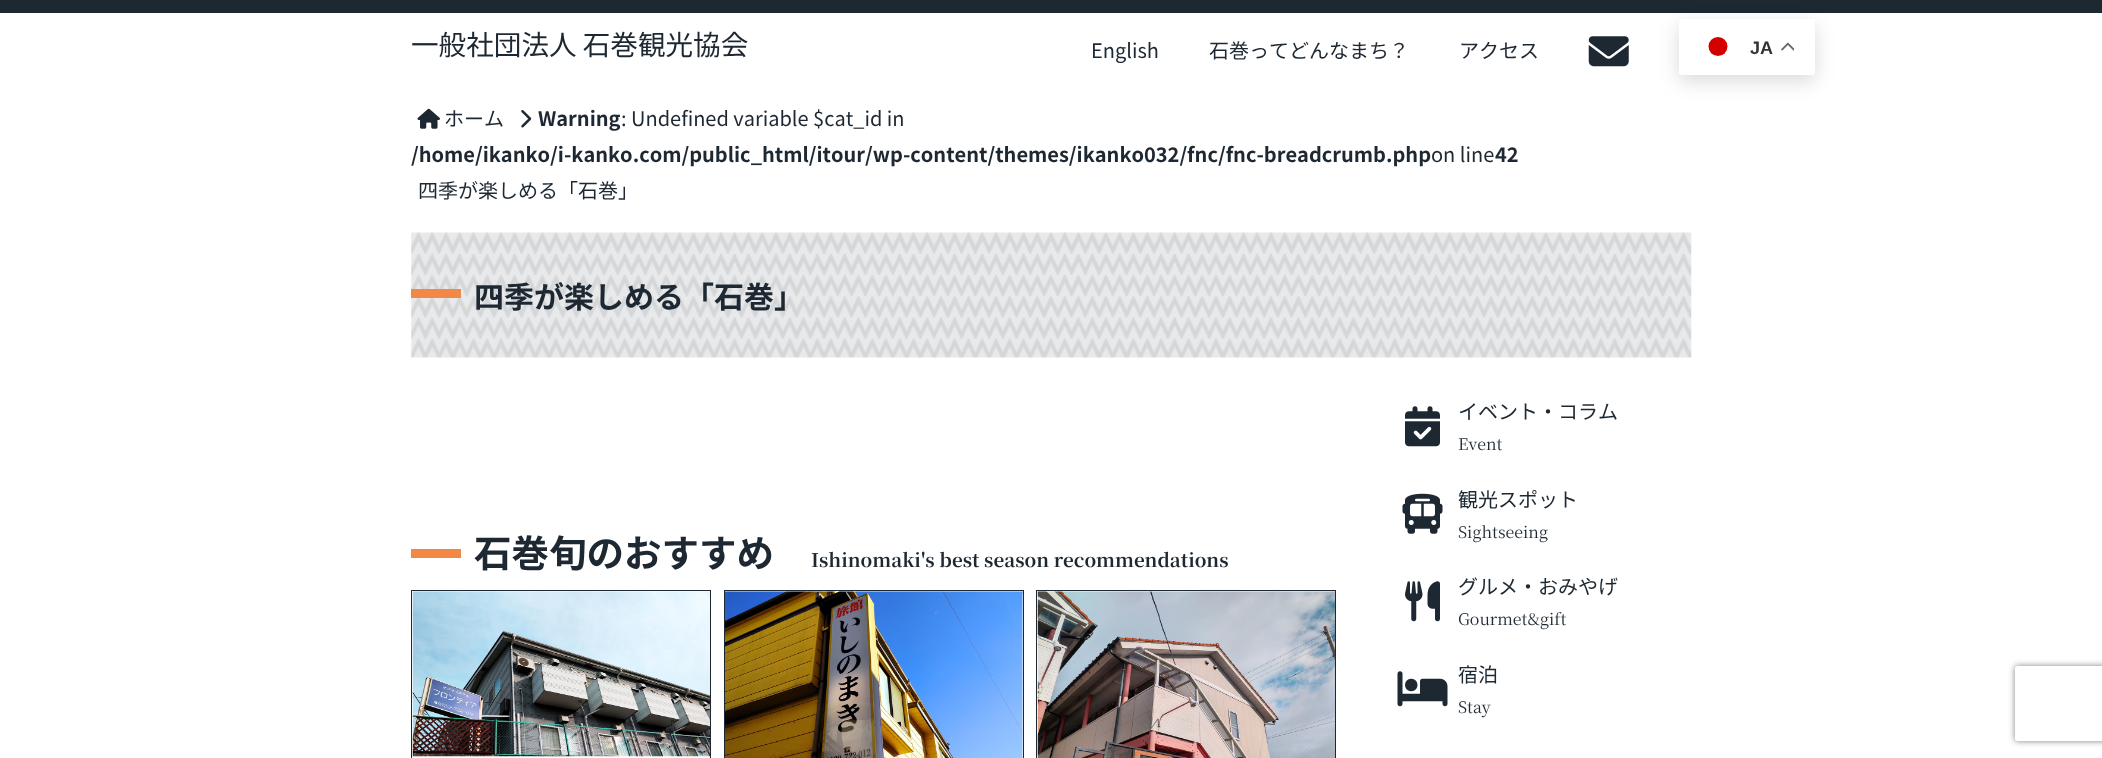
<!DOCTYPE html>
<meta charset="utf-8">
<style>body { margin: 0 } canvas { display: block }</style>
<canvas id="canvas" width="2102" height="758"></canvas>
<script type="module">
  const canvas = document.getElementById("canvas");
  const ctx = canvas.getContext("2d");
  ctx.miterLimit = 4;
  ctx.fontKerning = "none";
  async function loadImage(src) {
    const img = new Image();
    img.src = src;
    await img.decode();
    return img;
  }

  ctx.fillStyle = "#ffffff";
  ctx.fillRect(0, 0, 2102, 758);
  ctx.fillStyle = "#1d2832";
  ctx.fillRect(0, 0, 2102, 13);
  ctx.font = "27.6px Noto Sans JP";
  ctx.fillText("一般社団法人 石巻観光協会", 411, 55);
  ctx.font = "20px Noto Sans JP";
  ctx.fillText("English", 1091, 58);
  ctx.fillText("石巻ってどんなまち？", 1209, 58);
  ctx.fillText("アクセス", 1459, 58);
  ctx.drawImage(await loadImage("img1.png"), 1588, 36, 41, 31);
  ctx.fillStyle = "rgba(0, 0, 0, 0.15)";
  ctx.filter = "blur(9.5px)";
  ctx.beginPath();
  ctx.roundRect(1679, 25, 136, 56, 2.5);
  ctx.fill();
  ctx.filter = "none";
  ctx.fillStyle = "#ffffff";
  ctx.beginPath();
  ctx.roundRect(1679, 19, 136, 56, 2.5);
  ctx.fill();
  ctx.fillStyle = "#d30000";
  ctx.beginPath();
  ctx.arc(1718, 46.5, 9.5, 0, Math.PI * 2);
  ctx.fill();
  ctx.font = "bold 18px Liberation Sans";
  ctx.fillStyle = "#333333";
  ctx.fillText("JA", 1750, 54);
  ctx.drawImage(await loadImage("img2.png"), 1781, 42, 13, 9);
  ctx.drawImage(await loadImage("img3.png"), 417, 108, 23, 21);
  ctx.font = "20px Noto Sans JP";
  ctx.fillStyle = "#1d2832";
  ctx.fillText("ホーム", 444, 126);
  ctx.drawImage(await loadImage("img4.png"), 521, 110, 11, 18);
  ctx.font = "bold 20px Noto Sans JP";
  ctx.fillText("Warning", 538, 126);
  ctx.font = "20px Noto Sans JP";
  ctx.fillText(": Undefined variable $cat_id in", 621, 126);
  ctx.font = "bold 20px Noto Sans JP";
  ctx.fillText("/home/ikanko/i-kanko.com/public_html/itour/wp-content/themes/ikanko032/fnc/fnc-breadcrumb.php", 411, 162);
  ctx.font = "20px Noto Sans JP";
  ctx.fillText("on line", 1431, 162);
  ctx.font = "bold 20px Noto Sans JP";
  ctx.fillText("42", 1495, 162);
  ctx.font = "20px Noto Sans JP";
  ctx.fillText("四季が楽しめる「石巻」", 418, 198);
  ctx.drawImage(await loadImage("img5.png"), 411, 232, 1281, 126);
  ctx.fillStyle = "#f28746";
  ctx.fillRect(411, 289, 50, 9);
  ctx.font = "bold 30px Noto Sans JP";
  ctx.fillStyle = "#1d2832";
  ctx.fillText("四季が楽しめる「石巻」", 474, 308);
  ctx.fillStyle = "#f28746";
  ctx.fillRect(411, 549, 50, 9);
  ctx.font = "bold 37.5px Noto Sans JP";
  ctx.fillStyle = "#1d2832";
  ctx.fillText("石巻旬のおすすめ", 474, 567);
  ctx.font = "bold 18.75px Noto Serif JP";
  ctx.fillText("Ishinomaki's best season recommendations", 811, 567);
  ctx.strokeStyle = "#1d2832";
  ctx.strokeRect(411.5, 590.5, 299, 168);
  ctx.drawImage(await loadImage("img6.png"), 412, 591, 298, 166);
  ctx.strokeRect(724.5, 590.5, 299, 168);
  ctx.drawImage(await loadImage("img7.png"), 725, 591, 298, 167);
  ctx.strokeRect(1036.5, 590.5, 299, 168);
  ctx.drawImage(await loadImage("img8.png"), 1037, 591, 298, 167);
  ctx.drawImage(await loadImage("img9.png"), 1405, 406, 35, 41);
  ctx.font = "20px Noto Sans JP";
  ctx.fillText("イベント・コラム", 1458, 419);
  ctx.font = "16px Noto Serif JP";
  ctx.fillText("Event", 1458, 450);
  ctx.drawImage(await loadImage("img10.png"), 1402, 493, 41, 41);
  ctx.font = "20px Noto Sans JP";
  ctx.fillText("観光スポット", 1458, 507);
  ctx.font = "16px Noto Serif JP";
  ctx.fillText("Sightseeing", 1458, 538);
  ctx.drawImage(await loadImage("img11.png"), 1405, 581, 35, 41);
  ctx.font = "20px Noto Sans JP";
  ctx.fillText("グルメ・おみやげ", 1458, 594);
  ctx.font = "16px Noto Serif JP";
  ctx.fillText("Gourmet&gift", 1458, 625);
  ctx.drawImage(await loadImage("img12.png"), 1397, 671, 51, 36);
  ctx.font = "20px Noto Sans JP";
  ctx.fillText("宿泊", 1458, 682);
  ctx.font = "16px Noto Serif JP";
  ctx.fillText("Stay", 1458, 713);
  ctx.save();
  ctx.beginPath();
  ctx.moveTo(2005, 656);
  ctx.lineTo(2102, 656);
  ctx.lineTo(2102, 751);
  ctx.lineTo(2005, 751);
  ctx.closePath();
  ctx.moveTo(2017.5, 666);
  ctx.lineTo(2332.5, 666);
  ctx.bezierCurveTo(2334, 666, 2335, 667, 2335, 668.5);
  ctx.lineTo(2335, 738.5);
  ctx.bezierCurveTo(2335, 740, 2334, 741, 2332.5, 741);
  ctx.lineTo(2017.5, 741);
  ctx.bezierCurveTo(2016, 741, 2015, 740, 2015, 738.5);
  ctx.lineTo(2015, 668.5);
  ctx.bezierCurveTo(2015, 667, 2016, 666, 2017.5, 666);
  ctx.closePath();
  ctx.clip("evenodd");
  ctx.fillStyle = "#808080";
  ctx.filter = "blur(3px)";
  ctx.beginPath();
  ctx.roundRect(2015, 666, 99, 75, 2.5);
  ctx.fill();
  ctx.filter = "none";
  ctx.restore();
</script>
